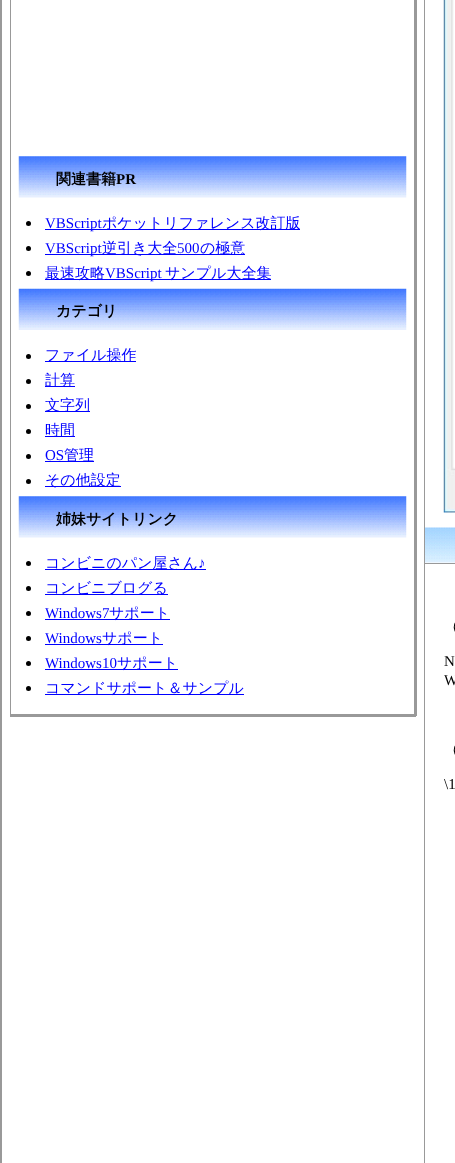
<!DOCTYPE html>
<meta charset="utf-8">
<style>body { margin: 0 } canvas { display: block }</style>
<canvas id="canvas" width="455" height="1163"></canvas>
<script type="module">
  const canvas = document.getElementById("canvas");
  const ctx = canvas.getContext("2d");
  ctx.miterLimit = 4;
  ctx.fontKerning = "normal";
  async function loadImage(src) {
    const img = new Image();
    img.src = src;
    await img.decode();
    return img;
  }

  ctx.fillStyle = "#999999";
  ctx.fillRect(0, 0, 455, 1163);
  ctx.fillStyle = "#ffffff";
  ctx.fillRect(2, 0, 453, 1163);
  ctx.fillStyle = "#999999";
  ctx.fillRect(414, 0, 3, 716);
  ctx.fillRect(10, 714, 406, 3);
  ctx.fillRect(10, 0, 1, 716);
  ctx.drawImage(await loadImage("img1.png"), 18, 156, 389, 42);
  ctx.font = "bold 15px WenQuanYi Zen Hei";
  ctx.fillStyle = "#000000";
  ctx.fillText("関連書籍", 56, 184);
  ctx.font = "bold 15px Liberation Serif";
  ctx.fillText("PR", 116, 184);
  ctx.beginPath();
  ctx.arc(28.5, 223.5, 2.5, 0, Math.PI * 2);
  ctx.fill();
  ctx.fillStyle = "#0000ff";
  ctx.fillRect(45, 229, 255, 1);
  ctx.font = "15px Liberation Serif";
  ctx.fillText("VBScript", 45, 228);
  ctx.font = "500 15px WenQuanYi Zen Hei";
  ctx.fillText("ポケットリファレンス改訂版", 102, 228);
  ctx.fillStyle = "#000000";
  ctx.beginPath();
  ctx.arc(28.5, 248.5, 2.5, 0, Math.PI * 2);
  ctx.fill();
  ctx.fillStyle = "#0000ff";
  ctx.fillRect(45, 254, 200, 1);
  ctx.font = "15px Liberation Serif";
  ctx.fillText("VBScript", 45, 253);
  ctx.font = "500 15px WenQuanYi Zen Hei";
  ctx.fillText("逆引き大全", 102, 253);
  ctx.font = "15px Liberation Serif";
  ctx.fillText("500", 177, 253);
  ctx.font = "500 15px WenQuanYi Zen Hei";
  ctx.fillText("の極意", 200, 253);
  ctx.fillStyle = "#000000";
  ctx.beginPath();
  ctx.arc(28.5, 273.5, 2.5, 0, Math.PI * 2);
  ctx.fill();
  ctx.fillStyle = "#0000ff";
  ctx.fillRect(45, 279, 226, 1);
  ctx.fillText("最速攻略", 45, 278);
  ctx.font = "15px Liberation Serif";
  ctx.fillText("VBScript", 105, 278);
  ctx.font = "500 15px WenQuanYi Zen Hei";
  ctx.fillText("サンプル大全集", 165, 278);
  ctx.drawImage(await loadImage("img2.png"), 18, 288, 389, 42);
  ctx.font = "bold 15px WenQuanYi Zen Hei";
  ctx.fillStyle = "#000000";
  ctx.fillText("カテゴリ", 56, 316);
  ctx.beginPath();
  ctx.arc(28.5, 356.5, 2.5, 0, Math.PI * 2);
  ctx.fill();
  ctx.fillStyle = "#0000ff";
  ctx.fillRect(45, 361, 91, 1);
  ctx.font = "500 15px WenQuanYi Zen Hei";
  ctx.fillText("ファイル操作", 45, 360);
  ctx.fillStyle = "#000000";
  ctx.beginPath();
  ctx.arc(28.5, 381.5, 2.5, 0, Math.PI * 2);
  ctx.fill();
  ctx.fillStyle = "#0000ff";
  ctx.fillRect(45, 386, 30, 1);
  ctx.fillText("計算", 45, 385);
  ctx.fillStyle = "#000000";
  ctx.beginPath();
  ctx.arc(28.5, 406.5, 2.5, 0, Math.PI * 2);
  ctx.fill();
  ctx.fillStyle = "#0000ff";
  ctx.fillRect(45, 411, 45, 1);
  ctx.fillText("文字列", 45, 410);
  ctx.fillStyle = "#000000";
  ctx.beginPath();
  ctx.arc(28.5, 431.5, 2.5, 0, Math.PI * 2);
  ctx.fill();
  ctx.fillStyle = "#0000ff";
  ctx.fillRect(45, 436, 30, 1);
  ctx.fillText("時間", 45, 435);
  ctx.fillStyle = "#000000";
  ctx.beginPath();
  ctx.arc(28.5, 456.5, 2.5, 0, Math.PI * 2);
  ctx.fill();
  ctx.font = "15px Liberation Serif";
  ctx.fillStyle = "#0000ff";
  ctx.fillText("OS", 45, 460);
  ctx.fillRect(45, 461, 49, 1);
  ctx.font = "500 15px WenQuanYi Zen Hei";
  ctx.fillText("管理", 64, 460);
  ctx.fillStyle = "#000000";
  ctx.beginPath();
  ctx.arc(28.5, 481.5, 2.5, 0, Math.PI * 2);
  ctx.fill();
  ctx.fillStyle = "#0000ff";
  ctx.fillRect(45, 486, 76, 1);
  ctx.fillText("その他設定", 45, 485);
  ctx.drawImage(await loadImage("img3.png"), 18, 496, 389, 42);
  ctx.font = "bold 15px WenQuanYi Zen Hei";
  ctx.fillStyle = "#000000";
  ctx.fillText("姉妹サイトリンク", 56, 524);
  ctx.beginPath();
  ctx.arc(28.5, 563.5, 2.5, 0, Math.PI * 2);
  ctx.fill();
  ctx.fillStyle = "#0000ff";
  ctx.fillRect(45, 569, 161, 1);
  ctx.font = "500 15px WenQuanYi Zen Hei";
  ctx.fillText("コンビニのパン屋さん", 45, 568);
  ctx.font = "15px Liberation Serif";
  ctx.fillText("♪", 198, 568);
  ctx.fillStyle = "#000000";
  ctx.beginPath();
  ctx.arc(28.5, 588.5, 2.5, 0, Math.PI * 2);
  ctx.fill();
  ctx.fillStyle = "#0000ff";
  ctx.fillRect(45, 594, 123, 1);
  ctx.font = "500 15px WenQuanYi Zen Hei";
  ctx.fillText("コンビニブログる", 45, 593);
  ctx.fillStyle = "#000000";
  ctx.beginPath();
  ctx.arc(28.5, 613.5, 2.5, 0, Math.PI * 2);
  ctx.fill();
  ctx.font = "15px Liberation Serif";
  ctx.fillStyle = "#0000ff";
  ctx.fillText("Windows7", 45, 618);
  ctx.fillRect(45, 619, 125, 1);
  ctx.font = "500 15px WenQuanYi Zen Hei";
  ctx.fillText("サポート", 109, 618);
  ctx.fillStyle = "#000000";
  ctx.beginPath();
  ctx.arc(28.5, 638.5, 2.5, 0, Math.PI * 2);
  ctx.fill();
  ctx.font = "15px Liberation Serif";
  ctx.fillStyle = "#0000ff";
  ctx.fillText("Windows", 45, 643);
  ctx.fillRect(45, 644, 118, 1);
  ctx.font = "500 15px WenQuanYi Zen Hei";
  ctx.fillText("サポート", 102, 643);
  ctx.fillStyle = "#000000";
  ctx.beginPath();
  ctx.arc(28.5, 663.5, 2.5, 0, Math.PI * 2);
  ctx.fill();
  ctx.font = "15px Liberation Serif";
  ctx.fillStyle = "#0000ff";
  ctx.fillText("Windows10", 45, 668);
  ctx.fillRect(45, 669, 133, 1);
  ctx.font = "500 15px WenQuanYi Zen Hei";
  ctx.fillText("サポート", 117, 668);
  ctx.fillStyle = "#000000";
  ctx.beginPath();
  ctx.arc(28.5, 688.5, 2.5, 0, Math.PI * 2);
  ctx.fill();
  ctx.fillStyle = "#0000ff";
  ctx.fillRect(45, 694, 199, 1);
  ctx.fillText("コマンドサポート＆サンプル", 45, 693);
  ctx.fillStyle = "#999999";
  ctx.fillRect(424, 0, 1, 1163);
  ctx.drawImage(await loadImage("img4.png"), 443, 0, 12, 513);
  ctx.drawImage(await loadImage("img5.png"), 425, 527, 30, 36);
  ctx.fillRect(425, 563, 30, 1);
  ctx.fillStyle = "#000000";
  ctx.fillText("（", 444, 631);
  ctx.font = "15px Liberation Serif";
  ctx.fillText("N", 444, 666);
  ctx.fillText("W", 444, 685);
  ctx.font = "500 15px WenQuanYi Zen Hei";
  ctx.fillText("（", 444, 754);
  ctx.font = "15px Liberation Serif";
  ctx.fillText("\\1", 444, 789);
</script>
